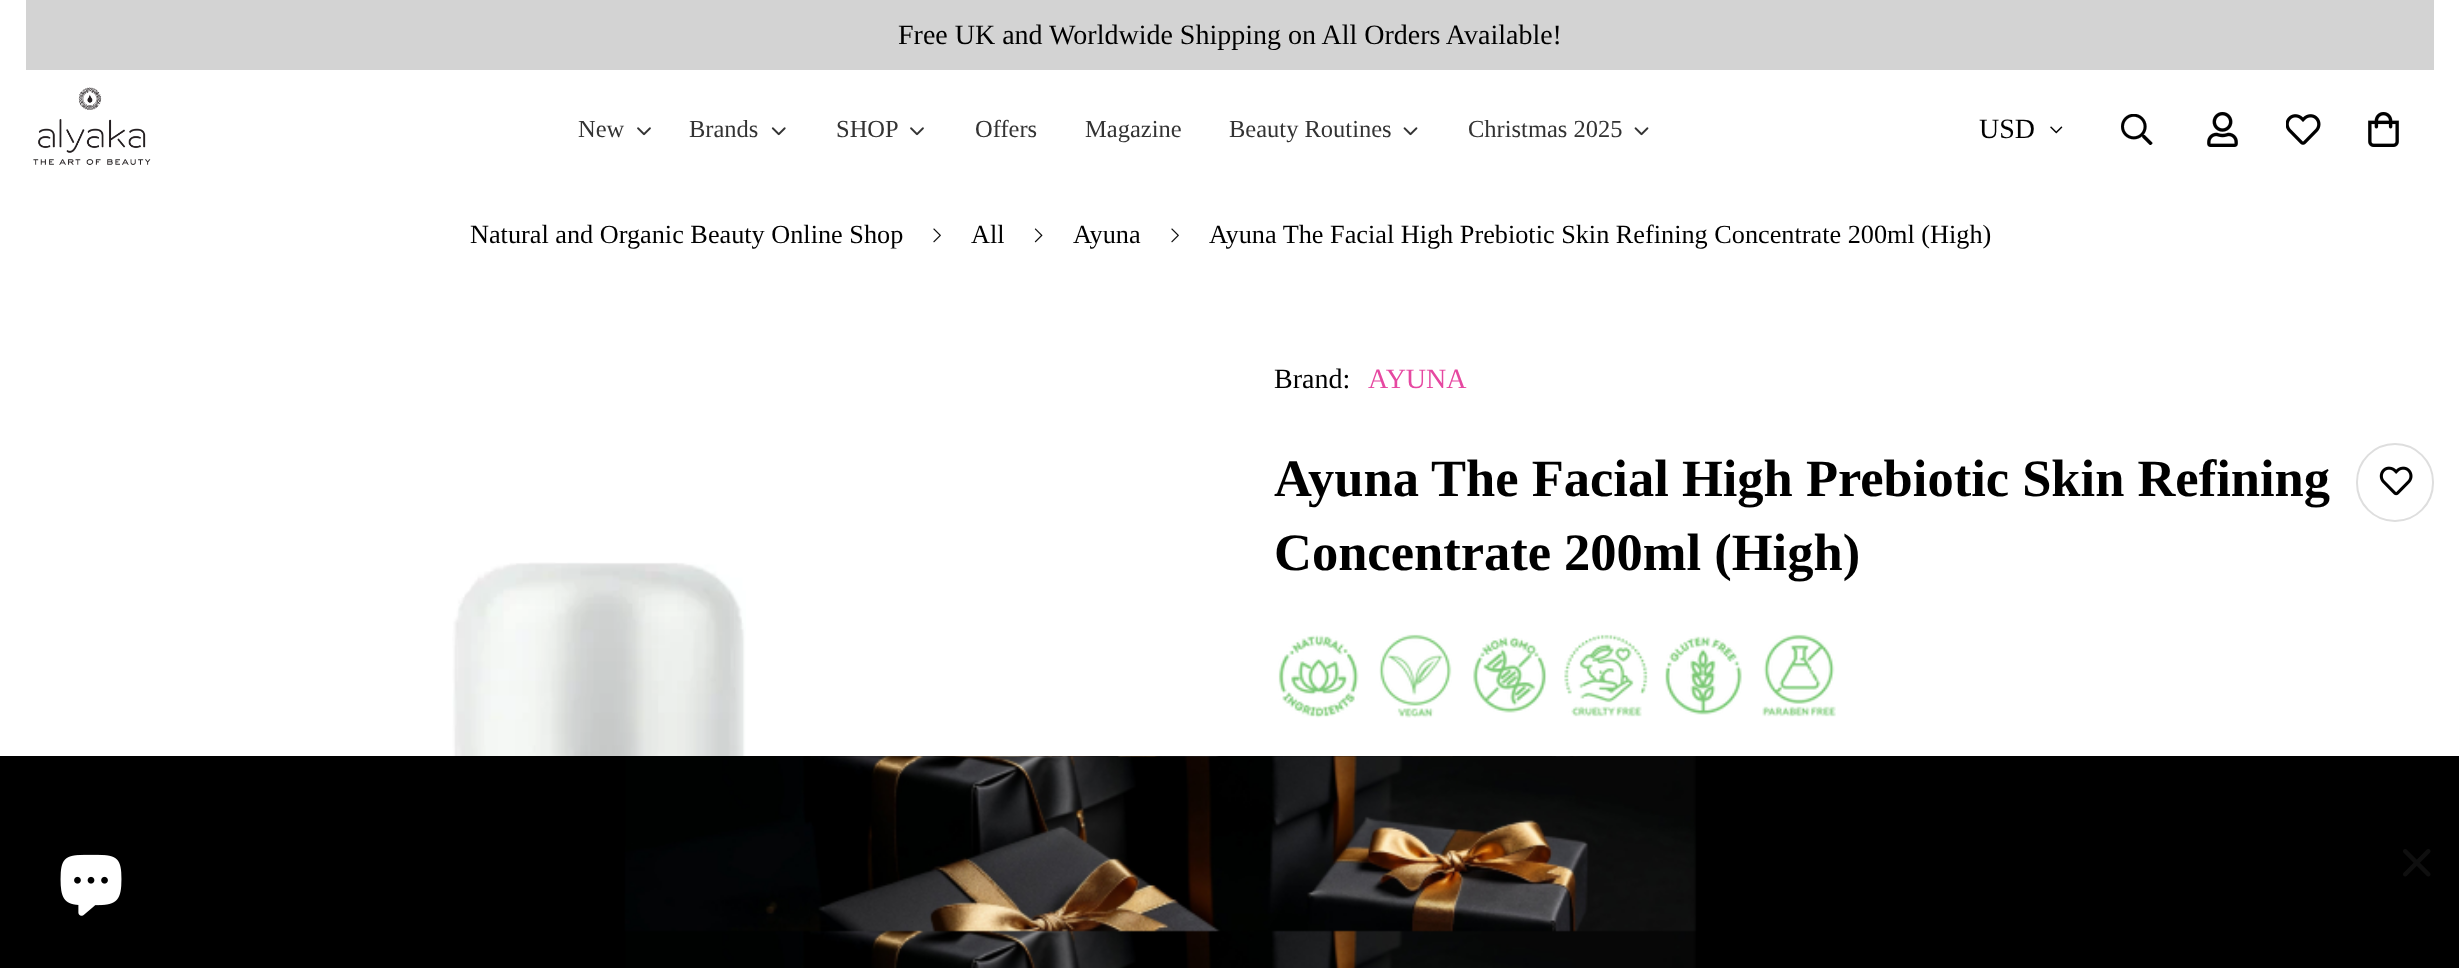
<!DOCTYPE html>
<meta charset="utf-8">
<style>body { margin: 0 } canvas { display: block }</style>
<canvas id="canvas" width="2459" height="968"></canvas>
<script type="module">
  const canvas = document.getElementById("canvas");
  const ctx = canvas.getContext("2d");
  ctx.miterLimit = 4;
  ctx.fontKerning = "normal";
  async function loadImage(src) {
    const img = new Image();
    img.src = src;
    await img.decode();
    return img;
  }

  ctx.fillStyle = "#ffffff";
  ctx.fillRect(0, 0, 2459, 968);
  ctx.fillStyle = "#d3d3d3";
  ctx.fillRect(26, 0, 2408, 70);
  ctx.font = "28px Liberation Serif";
  ctx.fillStyle = "#000000";
  ctx.fillText("Free UK and Worldwide Shipping on All Orders Available!", 898, 44);
  ctx.drawImage(await loadImage("img1.png"), 33, 87, 118, 78);
  ctx.font = "24.5px Liberation Serif";
  ctx.fillStyle = "#333333";
  ctx.fillText("New", 578, 137);
  ctx.drawImage(await loadImage("img2.png"), 637, 127, 14, 9);
  ctx.fillText("Brands", 689, 137);
  ctx.drawImage(await loadImage("img3.png"), 771, 127, 15, 9);
  ctx.fillText("SHOP", 836, 137);
  ctx.drawImage(await loadImage("img2.png"), 910, 127, 14, 9);
  ctx.fillText("Offers", 975, 137);
  ctx.fillText("Magazine", 1085, 137);
  ctx.fillText("Beauty Routines", 1229, 137);
  ctx.drawImage(await loadImage("img4.png"), 1403, 127, 15, 9);
  ctx.fillText("Christmas 2025", 1468, 137);
  ctx.drawImage(await loadImage("img4.png"), 1634, 127, 15, 9);
  ctx.font = "28px Liberation Serif";
  ctx.fillStyle = "#000000";
  ctx.fillText("USD", 1979, 138);
  ctx.drawImage(await loadImage("img5.png"), 2050, 126, 13, 8);
  ctx.drawImage(await loadImage("img6.png"), 2121, 114, 32, 31);
  ctx.drawImage(await loadImage("img7.png"), 2207, 112, 31, 35);
  ctx.drawImage(await loadImage("img8.png"), 2286, 114, 35, 31);
  ctx.drawImage(await loadImage("img9.png"), 2368, 112, 31, 35);
  ctx.font = "26.25px Liberation Serif";
  ctx.fillText("Natural and Organic Beauty Online Shop", 470, 243);
  ctx.drawImage(await loadImage("img10.png"), 933, 228, 8, 15);
  ctx.fillText("All", 971, 243);
  ctx.drawImage(await loadImage("img11.png"), 1034, 228, 9, 15);
  ctx.fillText("Ayuna", 1073, 243);
  ctx.drawImage(await loadImage("img10.png"), 1171, 228, 8, 15);
  ctx.fillText("Ayuna The Facial High Prebiotic Skin Refining Concentrate 200ml (High)", 1209, 243);
  ctx.font = "28px Liberation Serif";
  ctx.fillText("Brand:", 1274, 388);
  ctx.fillStyle = "#e648a1";
  ctx.fillText("AYUNA", 1368, 388);
  ctx.font = "bold 52.5px Liberation Serif";
  ctx.fillStyle = "#000000";
  ctx.fillText("Ayuna The Facial High Prebiotic Skin Refining", 1274, 496);
  ctx.fillText("Concentrate 200ml (High)", 1274, 570);
  ctx.beginPath();
  ctx.roundRect(2357, 444, 76, 77, 38);
  ctx.strokeStyle = "#dedede";
  ctx.lineWidth = 2;
  ctx.stroke();
  ctx.drawImage(await loadImage("img12.png"), 2379, 466, 34, 30);
  ctx.drawImage(await loadImage("img13.png"), 1278, 635, 81, 83);
  ctx.drawImage(await loadImage("img14.png"), 1379, 634, 73, 84);
  ctx.drawImage(await loadImage("img15.png"), 1473, 636, 74, 77);
  ctx.drawImage(await loadImage("img16.png"), 1564, 634, 84, 83);
  ctx.drawImage(await loadImage("img17.png"), 1665, 636, 77, 79);
  ctx.drawImage(await loadImage("img18.png"), 1762, 634, 74, 83);
  ctx.drawImage(await loadImage("img19.png"), 452, 562, 294, 194);
  ctx.drawImage(await loadImage("img20.png"), 0, 756, 2459, 212);
  ctx.drawImage(await loadImage("img21.png"), 2403, 849, 28, 28);
  ctx.drawImage(await loadImage("img22.png"), 60, 854, 62, 62);
</script>
